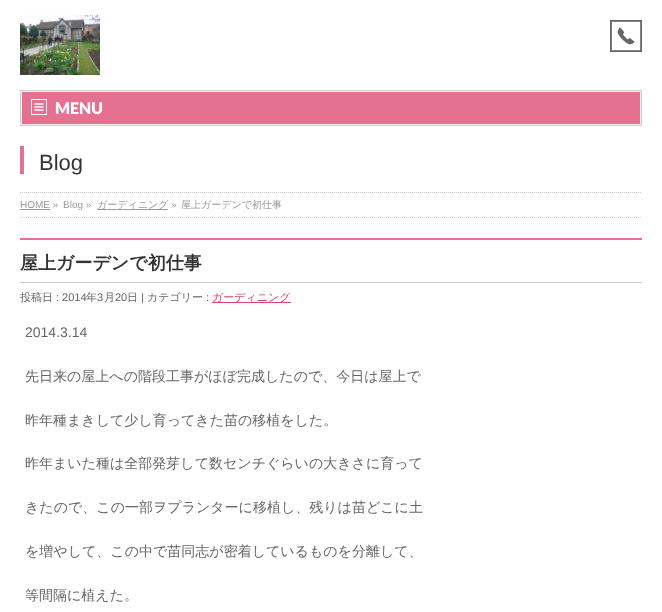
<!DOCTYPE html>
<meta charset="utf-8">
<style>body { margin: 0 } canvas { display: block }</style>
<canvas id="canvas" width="662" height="612"></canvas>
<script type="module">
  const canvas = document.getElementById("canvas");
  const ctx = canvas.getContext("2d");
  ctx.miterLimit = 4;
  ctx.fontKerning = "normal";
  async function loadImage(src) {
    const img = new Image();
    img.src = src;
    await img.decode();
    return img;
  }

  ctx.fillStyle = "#ffffff";
  ctx.fillRect(0, 0, 662, 612);
  ctx.drawImage(await loadImage("img1.png"), 20, 15, 80, 60);
  ctx.drawImage(await loadImage("img2.png"), 610, 20, 32, 32);
  ctx.fillStyle = "#e5708f";
  ctx.beginPath();
  ctx.rect(21.5, 91.5, 619, 33);
  ctx.fill();
  ctx.strokeStyle = "#fcf1f4";
  ctx.stroke();
  ctx.strokeStyle = "#cccccc";
  ctx.strokeRect(20.5, 90.5, 621, 35);
  ctx.drawImage(await loadImage("img3.png"), 31, 99, 16, 16);
  ctx.font = "900 16px Lato";
  ctx.fillStyle = "#ffffff";
  ctx.fillText("MENU", 55, 114);
  ctx.fillStyle = "#e5708f";
  ctx.fillRect(20, 146, 4, 28);
  ctx.font = "22px Liberation Sans";
  ctx.fillStyle = "#333333";
  ctx.fillText("Blog", 39, 170);
  ctx.beginPath();
  ctx.moveTo(20, 192.5);
  ctx.lineTo(642, 192.5);
  ctx.setLineDash([1, 1]);
  ctx.stroke();
  ctx.beginPath();
  ctx.moveTo(20, 217.5);
  ctx.lineTo(642, 217.5);
  ctx.stroke();
  ctx.font = "10px Liberation Sans";
  ctx.fillStyle = "#999999";
  ctx.fillText("HOME »", 20, 208);
  ctx.fillRect(20, 209, 30, 1);
  ctx.fillText("Blog »", 63, 208);
  ctx.fillRect(97, 209, 71, 1);
  ctx.font = "500 10px WenQuanYi Zen Hei";
  ctx.fillText("ガーディニング", 97, 208);
  ctx.font = "10px Liberation Sans";
  ctx.fillText("»", 171, 208);
  ctx.font = "500 10px WenQuanYi Zen Hei";
  ctx.fillText("屋上ガーデンで初仕事", 181, 208);
  ctx.fillStyle = "#e5708f";
  ctx.fillRect(20, 238, 622, 2);
  ctx.fillStyle = "#cccccc";
  ctx.fillRect(20, 282, 622, 1);
  ctx.font = "bold 18px WenQuanYi Zen Hei";
  ctx.fillStyle = "#333333";
  ctx.fillText("屋上ガーデンで初仕事", 20, 269);
  ctx.font = "500 11px WenQuanYi Zen Hei";
  ctx.fillStyle = "#666666";
  ctx.fillText("投稿日", 20, 301);
  ctx.font = "11px Liberation Sans";
  ctx.fillText(": 2014", 56, 301);
  ctx.font = "500 11px WenQuanYi Zen Hei";
  ctx.fillText("年", 86, 301);
  ctx.font = "11px Liberation Sans";
  ctx.fillText("3", 97, 301);
  ctx.font = "500 11px WenQuanYi Zen Hei";
  ctx.fillText("月", 104, 301);
  ctx.font = "11px Liberation Sans";
  ctx.fillText("20", 115, 301);
  ctx.font = "500 11px WenQuanYi Zen Hei";
  ctx.fillText("日", 127, 301);
  ctx.font = "11px Liberation Sans";
  ctx.fillText("|", 141, 301);
  ctx.font = "500 11px WenQuanYi Zen Hei";
  ctx.fillText("カテゴリー", 147, 301);
  ctx.font = "11px Liberation Sans";
  ctx.fillText(":", 206, 301);
  ctx.fillStyle = "#dd446d";
  ctx.fillRect(212, 302, 79, 1);
  ctx.font = "500 11px WenQuanYi Zen Hei";
  ctx.fillText("ガーディニング", 212, 301);
  ctx.font = "14px Liberation Sans";
  ctx.fillStyle = "#666666";
  ctx.fillText("2014.3.14", 25, 337);
  ctx.font = "500 14px WenQuanYi Zen Hei";
  ctx.fillText("先日来の屋上への階段工事がほぼ完成したので、今日は屋上で", 25, 381);
  ctx.fillText("昨年種まきして少し育ってきた苗の移植をした。", 25, 425);
  ctx.fillText("昨年まいた種は全部発芽して数センチぐらいの大きさに育って", 25, 468);
  ctx.fillText("きたので、この一部ヲプランターに移植し、残りは苗どこに土", 25, 512);
  ctx.fillText("を増やして、この中で苗同志が密着しているものを分離して、", 25, 556);
  ctx.fillText("等間隔に植えた。", 25, 600);
</script>
